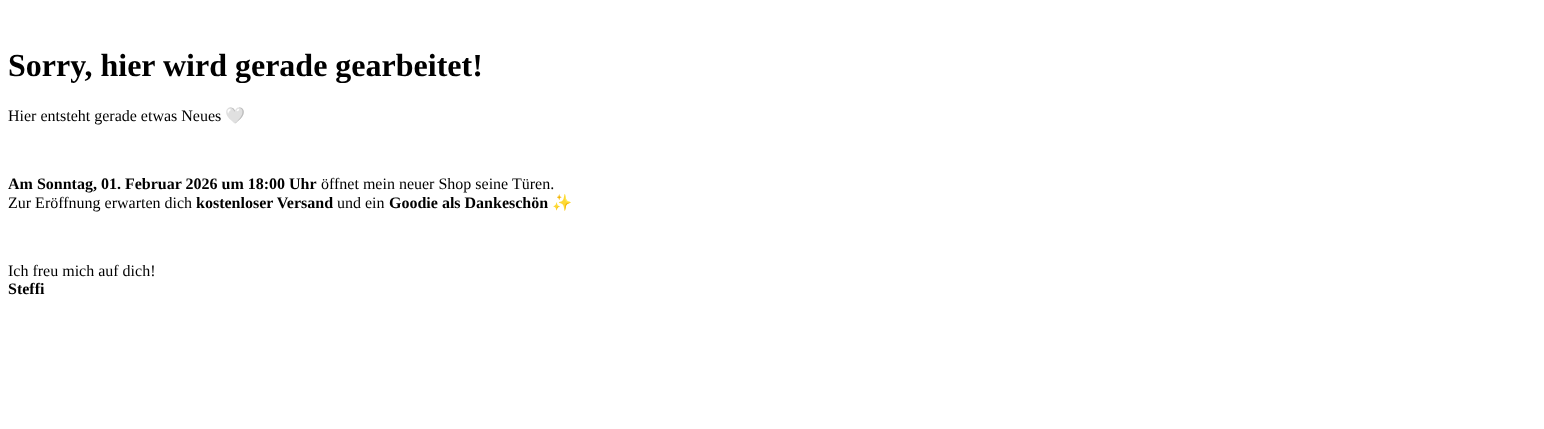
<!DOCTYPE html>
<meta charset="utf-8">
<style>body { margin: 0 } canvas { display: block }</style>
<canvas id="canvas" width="1544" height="429"></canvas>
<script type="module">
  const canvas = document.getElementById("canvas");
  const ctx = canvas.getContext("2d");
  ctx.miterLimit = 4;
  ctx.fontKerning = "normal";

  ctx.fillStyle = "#ffffff";
  ctx.fillRect(0, 0, 1544, 429);
  ctx.font = "bold 32px Liberation Serif";
  ctx.fillStyle = "#000000";
  ctx.fillText("Sorry, hier wird gerade gearbeitet!", 8, 76);
  ctx.font = "16px Liberation Serif";
  ctx.fillText("Hier entsteht gerade etwas Neues", 8, 121);
  ctx.font = "16px Noto Color Emoji";
  ctx.fillText("🤍", 225, 121);
  ctx.font = "bold 16px Liberation Serif";
  ctx.fillText("Am Sonntag, 01. Februar 2026 um 18:00 Uhr", 8, 189);
  ctx.font = "16px Liberation Serif";
  ctx.fillText("öffnet mein neuer Shop seine Türen.", 321, 189);
  ctx.fillText("Zur Eröffnung erwarten dich", 8, 208);
  ctx.font = "bold 16px Liberation Serif";
  ctx.fillText("kostenloser Versand", 196, 208);
  ctx.font = "16px Liberation Serif";
  ctx.fillText("und ein", 337, 208);
  ctx.font = "bold 16px Liberation Serif";
  ctx.fillText("Goodie als Dankeschön", 389, 208);
  ctx.font = "16px Noto Color Emoji";
  ctx.fillText("✨", 552, 208);
  ctx.font = "16px Liberation Serif";
  ctx.fillText("Ich freu mich auf dich!", 8, 276);
  ctx.font = "bold 16px Liberation Serif";
  ctx.fillText("Steffi", 8, 294);
</script>
